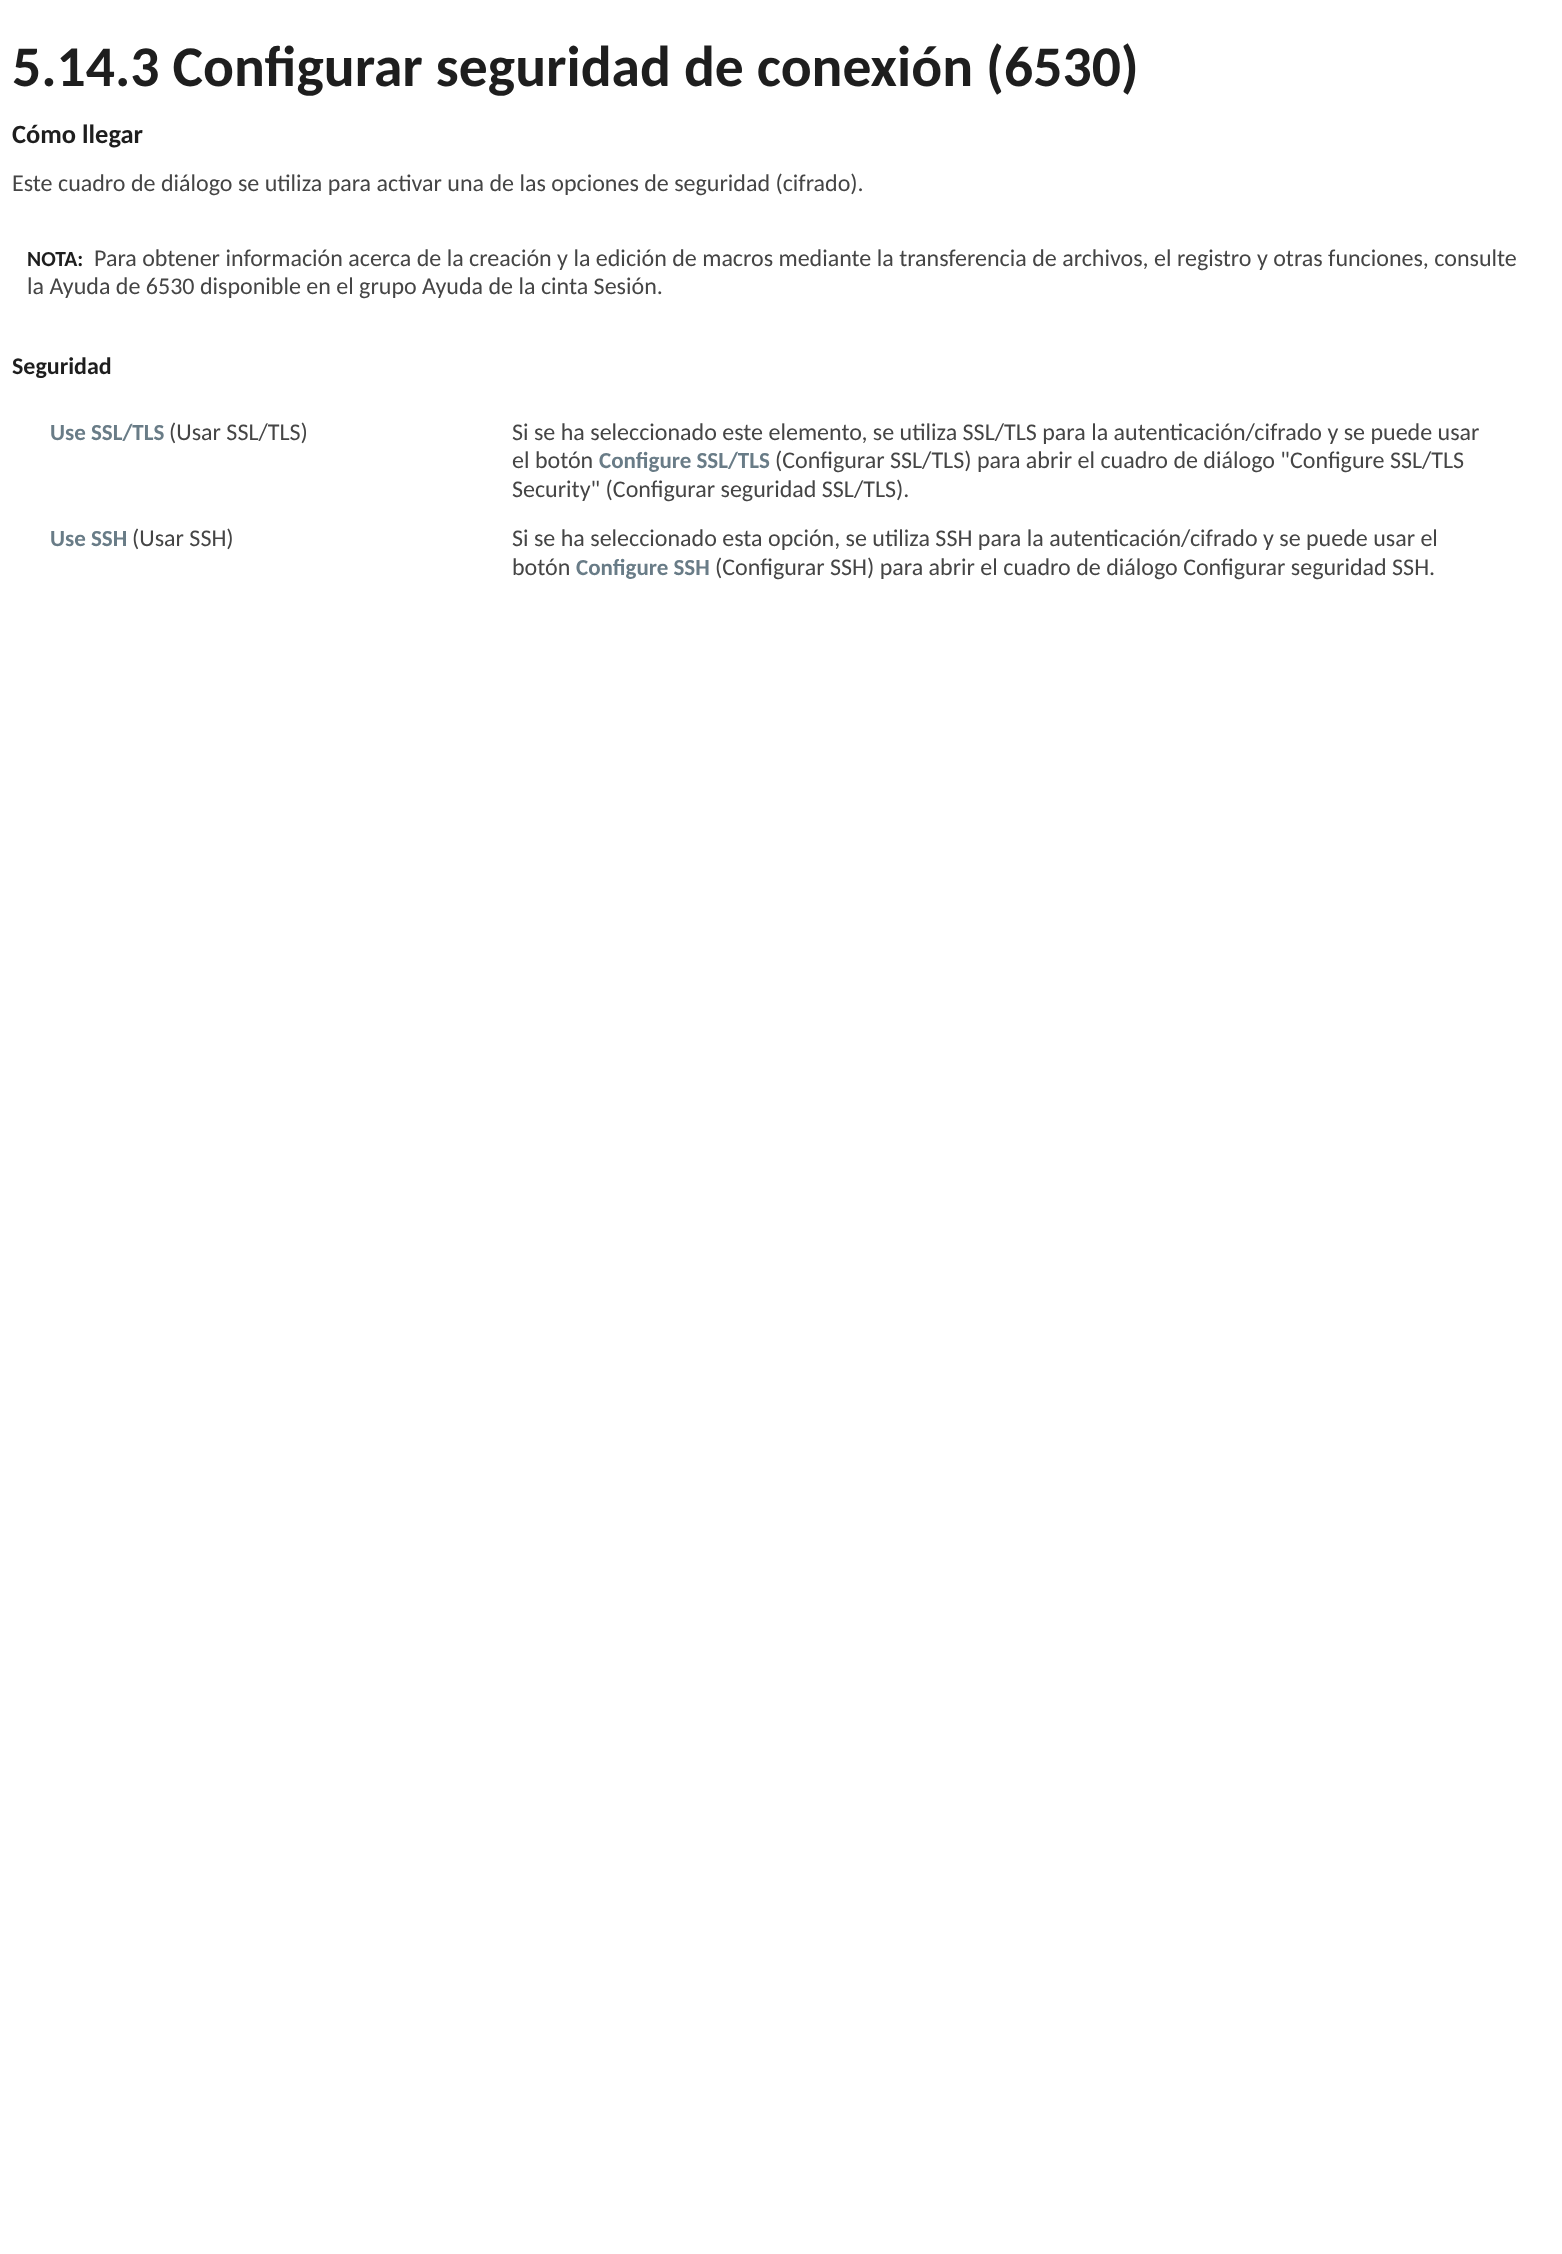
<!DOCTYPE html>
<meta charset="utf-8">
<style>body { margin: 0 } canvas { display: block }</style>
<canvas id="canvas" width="1562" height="2254"></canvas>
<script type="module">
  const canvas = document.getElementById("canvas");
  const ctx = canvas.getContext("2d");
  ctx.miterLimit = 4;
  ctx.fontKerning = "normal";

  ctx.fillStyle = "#ffffff";
  ctx.fillRect(0, 0, 1562, 2254);
  ctx.font = "bold 57.6px Carlito";
  ctx.fillStyle = "#1e1e1e";
  ctx.fillText("5.14.3 Configurar seguridad de conexión (6530)", 12, 86);
  ctx.font = "bold 26.5px Carlito";
  ctx.fillText("Cómo llegar", 12, 143);
  ctx.font = "24px Carlito";
  ctx.fillStyle = "#454545";
  ctx.fillText("Este cuadro de diálogo se utiliza para activar una de las opciones de seguridad (cifrado).", 12, 191);
  ctx.font = "bold 21.5px Carlito";
  ctx.fillStyle = "#1e1e1e";
  ctx.fillText("NOTA:", 27, 266);
  ctx.font = "24px Carlito";
  ctx.fillStyle = "#454545";
  ctx.fillText("Para obtener información acerca de la creación y la edición de macros mediante la transferencia de archivos, el registro y otras funciones, consulte", 94, 266);
  ctx.fillText("la Ayuda de 6530 disponible en el grupo Ayuda de la cinta Sesión.", 27, 294);
  ctx.font = "bold 24px Carlito";
  ctx.fillStyle = "#1e1e1e";
  ctx.fillText("Seguridad", 12, 374);
  ctx.font = "bold 23px Carlito";
  ctx.fillStyle = "#697c87";
  ctx.fillText("Use SSL/TLS", 50, 440);
  ctx.font = "24px Carlito";
  ctx.fillStyle = "#454545";
  ctx.fillText("(Usar SSL/TLS)", 169, 440);
  ctx.fillText("Si se ha seleccionado este elemento, se utiliza SSL/TLS para la autenticación/cifrado y se puede usar", 512, 440);
  ctx.fillText("el botón", 512, 468);
  ctx.font = "bold 23px Carlito";
  ctx.fillStyle = "#697c87";
  ctx.fillText("Configure SSL/TLS", 599, 468);
  ctx.font = "24px Carlito";
  ctx.fillStyle = "#454545";
  ctx.fillText("(Configurar SSL/TLS) para abrir el cuadro de diálogo \"Configure SSL/TLS", 775, 468);
  ctx.fillText("Security\" (Configurar seguridad SSL/TLS).", 512, 497);
  ctx.font = "bold 23px Carlito";
  ctx.fillStyle = "#697c87";
  ctx.fillText("Use SSH", 50, 546);
  ctx.font = "24px Carlito";
  ctx.fillStyle = "#454545";
  ctx.fillText("(Usar SSH)", 132, 546);
  ctx.fillText("Si se ha seleccionado esta opción, se utiliza SSH para la autenticación/cifrado y se puede usar el", 512, 546);
  ctx.fillText("botón", 512, 575);
  ctx.font = "bold 23px Carlito";
  ctx.fillStyle = "#697c87";
  ctx.fillText("Configure SSH", 576, 575);
  ctx.font = "24px Carlito";
  ctx.fillStyle = "#454545";
  ctx.fillText("(Configurar SSH) para abrir el cuadro de diálogo Configurar seguridad SSH.", 715, 575);
</script>
